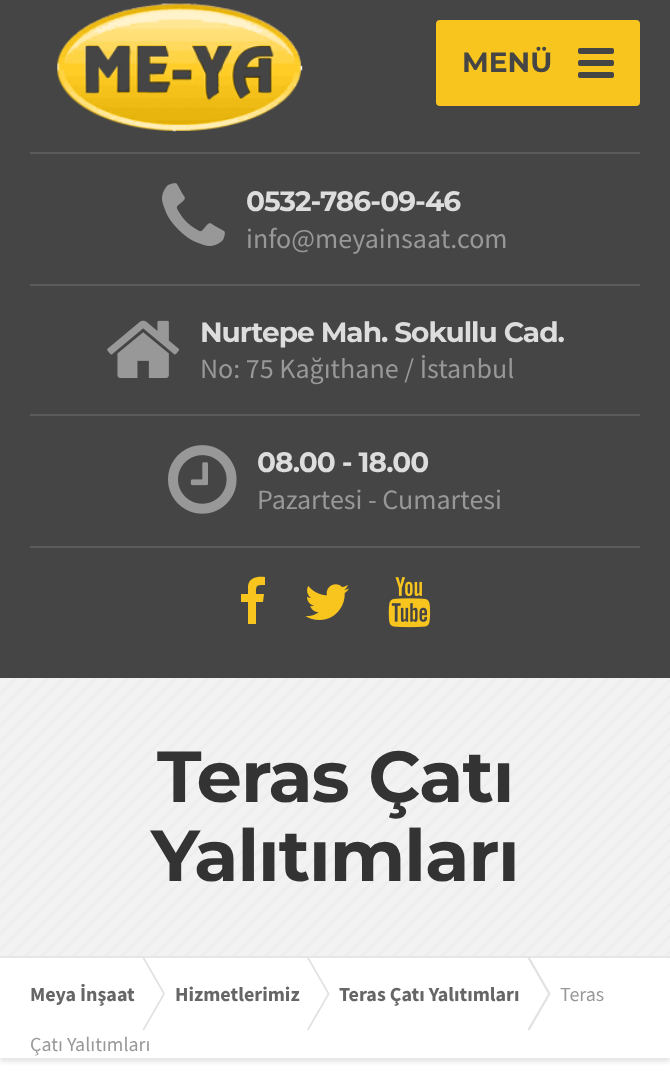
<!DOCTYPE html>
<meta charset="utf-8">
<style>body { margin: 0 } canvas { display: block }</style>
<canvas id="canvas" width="670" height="1089"></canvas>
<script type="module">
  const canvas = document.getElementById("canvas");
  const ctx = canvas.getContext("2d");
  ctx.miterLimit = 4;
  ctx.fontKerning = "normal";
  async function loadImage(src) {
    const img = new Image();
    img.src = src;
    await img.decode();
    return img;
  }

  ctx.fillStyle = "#ffffff";
  ctx.fillRect(0, 0, 670, 1089);
  ctx.fillStyle = "#454545";
  ctx.fillRect(0, 0, 670, 678);
  ctx.drawImage(await loadImage("img1.png"), 57, 3, 246, 129);
  ctx.fillStyle = "#f7c51e";
  ctx.beginPath();
  ctx.roundRect(436, 20, 204, 86, 4);
  ctx.fill();
  ctx.font = "100 28px Montserrat";
  ctx.fillStyle = "#454545";
  ctx.fillText("MENÜ", 462, 72);
  ctx.beginPath();
  ctx.roundRect(578, 48, 36, 6, 2);
  ctx.fill();
  ctx.beginPath();
  ctx.roundRect(578, 60, 36, 6, 2);
  ctx.fill();
  ctx.beginPath();
  ctx.roundRect(578, 72, 36, 6, 2);
  ctx.fill();
  ctx.fillStyle = "#5b5b5b";
  ctx.fillRect(30, 152, 610, 2);
  ctx.fillRect(30, 284, 610, 2);
  ctx.drawImage(await loadImage("img2.png"), 162, 183, 63, 63);
  ctx.letterSpacing = "-1px";
  ctx.fillStyle = "#dddddd";
  ctx.fillText("0532-786-09-46", 246, 211);
  ctx.letterSpacing = "0px";
  ctx.font = "28px Source Sans Pro";
  ctx.fillStyle = "#989898";
  ctx.fillText("info@meyainsaat.com", 246, 248);
  ctx.fillStyle = "#5b5b5b";
  ctx.fillRect(30, 414, 610, 2);
  ctx.drawImage(await loadImage("img3.png"), 107, 320, 73, 58);
  ctx.letterSpacing = "-1px";
  ctx.font = "100 28px Montserrat";
  ctx.fillStyle = "#dddddd";
  ctx.fillText("Nurtepe Mah. Sokullu Cad.", 200, 342);
  ctx.letterSpacing = "0px";
  ctx.font = "28px Source Sans Pro";
  ctx.fillStyle = "#989898";
  ctx.fillText("No: 75 Kağıthane / İstanbul", 200, 378);
  ctx.fillStyle = "#5b5b5b";
  ctx.fillRect(30, 546, 610, 2);
  ctx.drawImage(await loadImage("img4.png"), 168, 445, 69, 69);
  ctx.letterSpacing = "-1px";
  ctx.font = "100 28px Montserrat";
  ctx.fillStyle = "#dddddd";
  ctx.fillText("08.00 - 18.00", 257, 472);
  ctx.letterSpacing = "0px";
  ctx.font = "28px Source Sans Pro";
  ctx.fillStyle = "#989898";
  ctx.fillText("Pazartesi - Cumartesi", 257, 509);
  ctx.fillStyle = "#f7c51e";
  ctx.beginPath();
  ctx.moveTo(265, 577);
  ctx.lineTo(265, 585);
  ctx.bezierCurveTo(256, 585, 256, 585, 256, 594);
  ctx.lineTo(264, 594);
  ctx.lineTo(263, 602);
  ctx.lineTo(256, 602);
  ctx.lineTo(256, 624);
  ctx.lineTo(248, 624);
  ctx.lineTo(248, 602);
  ctx.lineTo(241, 602);
  ctx.lineTo(241, 594);
  ctx.lineTo(248, 594);
  ctx.lineTo(248, 586);
  ctx.bezierCurveTo(249, 577, 258, 576, 265, 577);
  ctx.closePath();
  ctx.fill();
  ctx.drawImage(await loadImage("img5.png"), 305, 584, 44, 36);
  ctx.drawImage(await loadImage("img6.png"), 388, 577, 43, 51);
  ctx.fillStyle = "#f2f2f2";
  ctx.fillRect(0, 678, 670, 278);
  ctx.drawImage(await loadImage("img7.png"), 0, 678, 670, 278);
  ctx.fillStyle = "#e6e6e6";
  ctx.fillRect(0, 956, 670, 2);
  ctx.letterSpacing = "-1px";
  ctx.font = "100 72px Montserrat";
  ctx.fillStyle = "#333333";
  ctx.fillText("Teras Çatı", 157, 802);
  ctx.fillText("Yalıtımları", 151, 881);
  ctx.save();
  ctx.beginPath();
  ctx.rect(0, 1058, 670, 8);
  ctx.clip();
  ctx.fillStyle = "#e6e6e6";
  ctx.filter = "blur(2px)";
  ctx.beginPath();
  ctx.rect(0, 962, 670, 100);
  ctx.fill();
  ctx.filter = "none";
  ctx.restore();
  ctx.letterSpacing = "0px";
  ctx.font = "bold 20px Source Sans Pro";
  ctx.fillStyle = "#666666";
  ctx.fillText("Meya İnşaat", 30, 1001);
  ctx.fillStyle = "#e2e2e2";
  ctx.beginPath();
  ctx.moveTo(142.5, 958);
  ctx.lineTo(144, 957);
  ctx.lineTo(165, 993.5);
  ctx.lineTo(163.5, 994.5);
  ctx.closePath();
  ctx.fill();
  ctx.beginPath();
  ctx.moveTo(163.5, 993);
  ctx.lineTo(165, 994);
  ctx.lineTo(144, 1030.5);
  ctx.lineTo(142.5, 1029.5);
  ctx.closePath();
  ctx.fill();
  ctx.fillStyle = "#666666";
  ctx.fillText("Hizmetlerimiz", 175, 1001);
  ctx.fillStyle = "#e2e2e2";
  ctx.beginPath();
  ctx.moveTo(307, 958);
  ctx.lineTo(308.5, 957);
  ctx.lineTo(329.5, 993.5);
  ctx.lineTo(328, 994.5);
  ctx.closePath();
  ctx.fill();
  ctx.beginPath();
  ctx.moveTo(328, 993);
  ctx.lineTo(329.5, 994);
  ctx.lineTo(308.5, 1030.5);
  ctx.lineTo(307, 1029.5);
  ctx.closePath();
  ctx.fill();
  ctx.fillStyle = "#666666";
  ctx.fillText("Teras Çatı Yalıtımları", 339, 1001);
  ctx.fillStyle = "#e2e2e2";
  ctx.beginPath();
  ctx.moveTo(527.5, 958);
  ctx.lineTo(529.5, 957);
  ctx.lineTo(550.5, 993.5);
  ctx.lineTo(548.5, 994.5);
  ctx.closePath();
  ctx.fill();
  ctx.beginPath();
  ctx.moveTo(548.5, 993);
  ctx.lineTo(550.5, 994);
  ctx.lineTo(529.5, 1030.5);
  ctx.lineTo(527.5, 1029.5);
  ctx.closePath();
  ctx.fill();
  ctx.font = "20px Source Sans Pro";
  ctx.fillStyle = "#989898";
  ctx.fillText("Teras", 560, 1001);
  ctx.fillText("Çatı Yalıtımları", 30, 1051);
</script>
